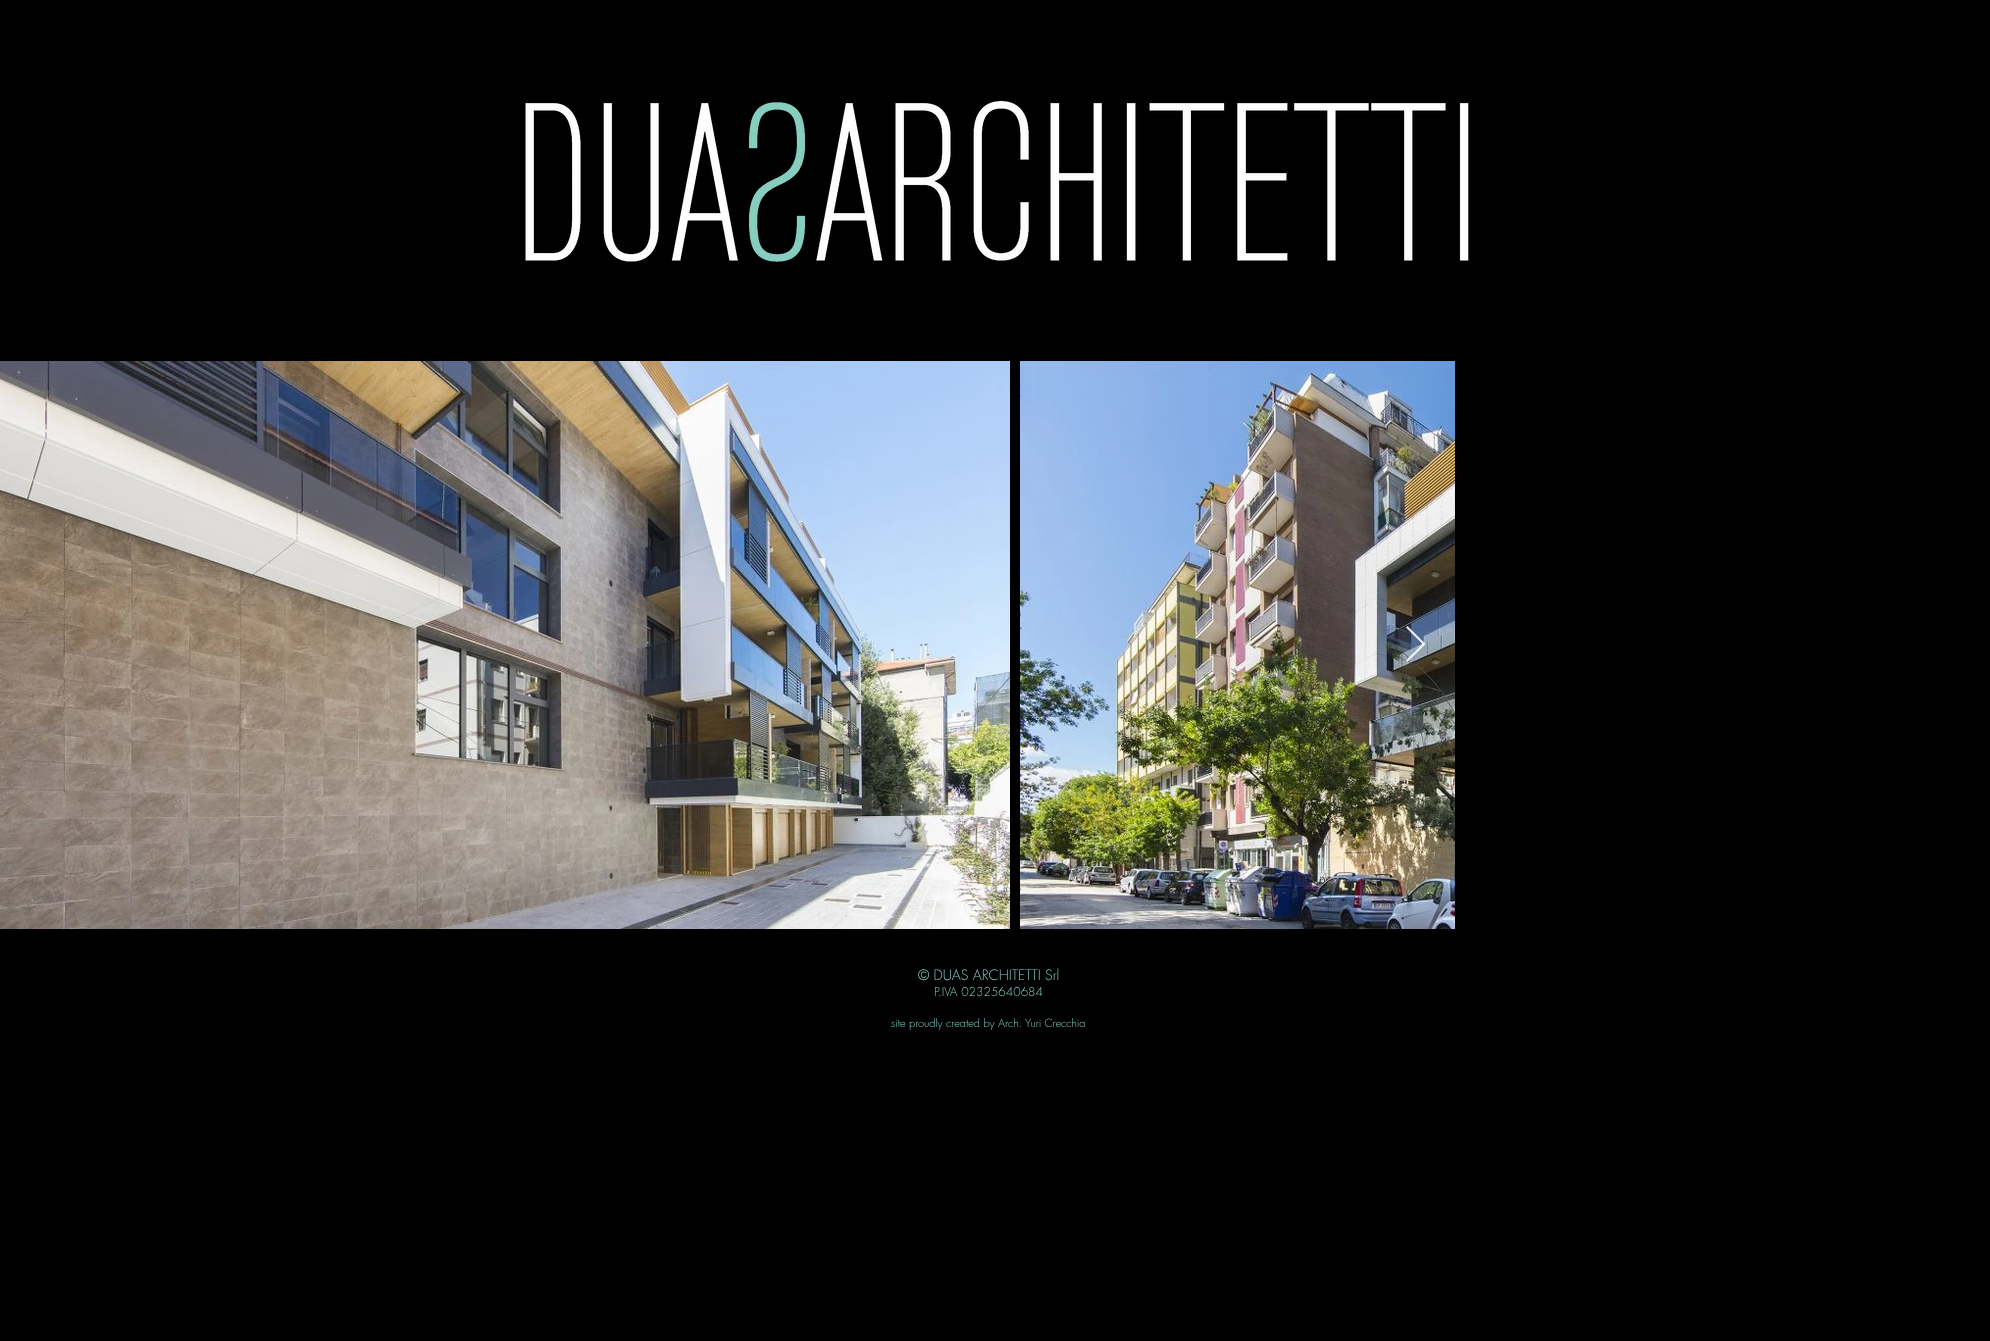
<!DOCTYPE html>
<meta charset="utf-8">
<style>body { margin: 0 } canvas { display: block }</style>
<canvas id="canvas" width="1990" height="1341"></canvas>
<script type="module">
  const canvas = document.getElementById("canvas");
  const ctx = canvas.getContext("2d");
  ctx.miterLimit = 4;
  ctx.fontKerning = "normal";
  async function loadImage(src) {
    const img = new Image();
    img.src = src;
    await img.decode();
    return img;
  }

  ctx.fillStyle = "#000000";
  ctx.fillRect(0, 0, 1990, 1341);
  ctx.drawImage(await loadImage("img1.png"), 525, 100, 944, 162);
  ctx.drawImage(await loadImage("img2.png"), 0, 361, 1010, 568);
  ctx.drawImage(await loadImage("img3.png"), 1020, 361, 435, 568);
  ctx.fillStyle = "rgba(255, 255, 255, 0.9)";
  ctx.beginPath();
  ctx.moveTo(1406, 627.5);
  ctx.lineTo(1407.5, 626);
  ctx.lineTo(1425.5, 644);
  ctx.lineTo(1407.5, 662);
  ctx.lineTo(1406, 660.5);
  ctx.lineTo(1422.5, 644);
  ctx.closePath();
  ctx.fill();
  ctx.font = "300 14px futura";
  ctx.fillStyle = "#80cec0";
  ctx.fillText("© DUAS ARCHITETTI Srl", 918, 980);
  ctx.font = "300 12px futura";
  ctx.fillText("P.IVA 02325640684", 934, 996);
  ctx.font = "300 11px futura";
  ctx.fillText("site proudly created by Arch. Yuri Crecchia", 891, 1027);
</script>
